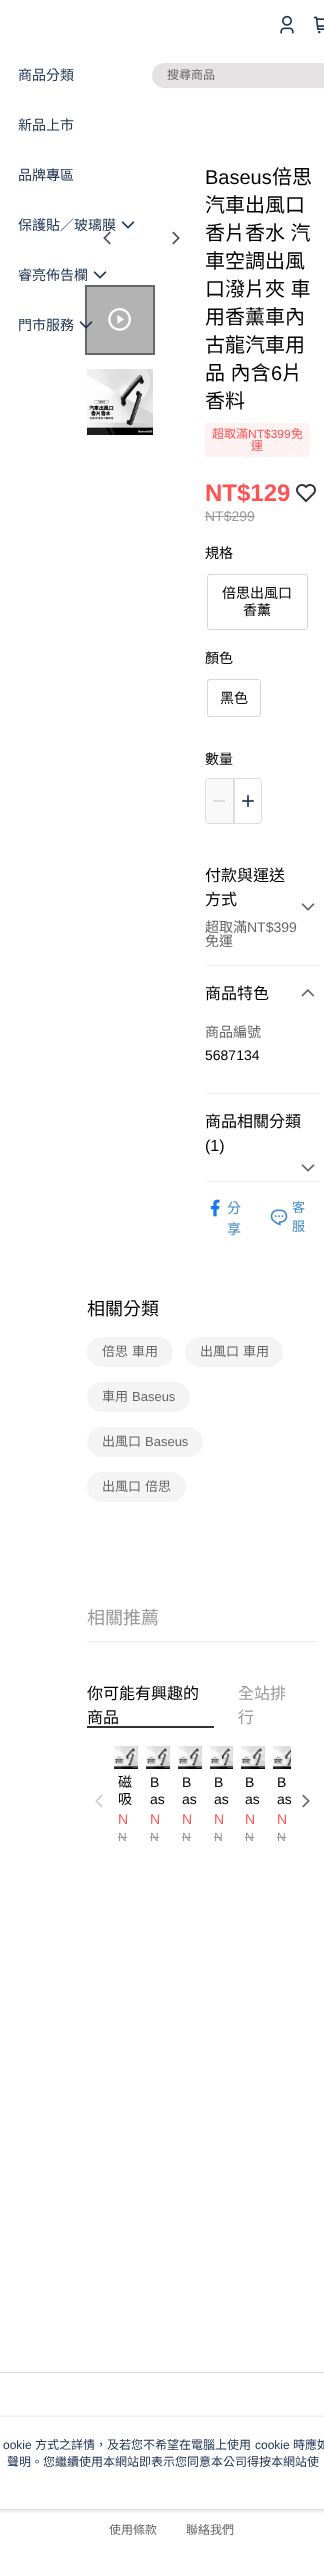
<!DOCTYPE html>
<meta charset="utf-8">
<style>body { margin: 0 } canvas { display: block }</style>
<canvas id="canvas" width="324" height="2555"></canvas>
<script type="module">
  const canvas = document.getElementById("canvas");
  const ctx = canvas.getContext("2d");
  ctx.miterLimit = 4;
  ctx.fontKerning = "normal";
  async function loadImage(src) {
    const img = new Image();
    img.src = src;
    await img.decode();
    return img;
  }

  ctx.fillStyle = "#ffffff";
  ctx.fillRect(0, 0, 324, 2555);
  ctx.drawImage(await loadImage("img1.png"), 280, 15, 14, 19);
  ctx.drawImage(await loadImage("img2.png"), 313, 16, 11, 18);
  ctx.font = "14px Noto Sans CJK TC";
  ctx.fillStyle = "#233654";
  ctx.fillText("商品分類", 18, 80);
  ctx.fillText("新品上市", 18, 130);
  ctx.fillText("品牌專區", 18, 180);
  ctx.drawImage(await loadImage("img5.png"), 103, 231, 8, 14);
  ctx.fillText("保護貼／玻璃膜", 18, 230);
  ctx.drawImage(await loadImage("img3.png"), 121, 221, 14, 8);
  ctx.fillText("睿亮佈告欄", 18, 280);
  ctx.drawImage(await loadImage("img3.png"), 93, 271, 14, 8);
  ctx.fillText("門市服務", 18, 330);
  ctx.strokeStyle = "#666666";
  ctx.lineWidth = 2;
  ctx.strokeRect(86, 286, 68, 68);
  ctx.fillStyle = "#b3b3b3";
  ctx.fillRect(87, 287, 66, 66);
  ctx.drawImage(await loadImage("img4.png"), 79, 321, 14, 8);
  ctx.fillStyle = "#e4e2e2";
  ctx.beginPath();
  ctx.roundRect(152, 63, 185, 25, 12.5);
  ctx.fill();
  ctx.font = "12px Noto Sans CJK TC";
  ctx.fillStyle = "#666666";
  ctx.fillText("搜尋商品", 167, 79);
  ctx.drawImage(await loadImage("img6.png"), 172, 231, 8, 14);
  ctx.drawImage(await loadImage("img7.png"), 108, 308, 23, 23);
  ctx.drawImage(await loadImage("img8.png"), 87, 369, 66, 66);
  ctx.font = "20px Liberation Sans";
  ctx.fillStyle = "#000000";
  ctx.fillText("Baseus", 205, 184);
  ctx.font = "20px Noto Sans CJK TC";
  ctx.fillText("倍思", 272, 184);
  ctx.fillText("汽車出風口", 205, 212);
  ctx.wordSpacing = "1px";
  ctx.fillText("香片香水 汽", 205, 240);
  ctx.wordSpacing = "0px";
  ctx.fillText("車空調出風", 205, 268);
  ctx.wordSpacing = "1px";
  ctx.fillText("口潑片夾 車", 205, 296);
  ctx.wordSpacing = "0px";
  ctx.fillText("用香薰車內", 205, 324);
  ctx.fillText("古龍汽車用", 205, 352);
  ctx.wordSpacing = "1px";
  ctx.fillText("品 內含", 205, 380);
  ctx.wordSpacing = "0px";
  ctx.font = "20px Liberation Sans";
  ctx.fillText("6", 271, 380);
  ctx.font = "20px Noto Sans CJK TC";
  ctx.fillText("片", 282, 380);
  ctx.fillText("香料", 205, 408);
  ctx.fillStyle = "#fff2f2";
  ctx.beginPath();
  ctx.roundRect(205.5, 423.5, 104, 33, 1.5);
  ctx.fill();
  ctx.strokeStyle = "#fff2f2";
  ctx.lineWidth = 1;
  ctx.stroke();
  ctx.font = "12px Noto Sans CJK TC";
  ctx.fillStyle = "#ff5353";
  ctx.fillText("超取滿", 212, 438);
  ctx.font = "12px Liberation Sans";
  ctx.fillText("NT$399", 248, 438);
  ctx.font = "12px Noto Sans CJK TC";
  ctx.fillText("免", 291, 438);
  ctx.fillText("運", 251, 450);
  ctx.font = "bold 24px Liberation Sans";
  ctx.fillText("NT$129", 205, 501);
  ctx.drawImage(await loadImage("img9.png"), 296, 484, 20, 19);
  ctx.font = "14px Liberation Sans";
  ctx.fillStyle = "#999999";
  ctx.fillText("NT$299", 205, 521);
  ctx.fillRect(205, 516, 50, 1);
  ctx.font = "14px Noto Sans CJK TC";
  ctx.fillStyle = "#000000";
  ctx.fillText("規格", 205, 558);
  ctx.beginPath();
  ctx.roundRect(207.5, 574.5, 100, 55, 2.5);
  ctx.strokeStyle = "#d8d8d8";
  ctx.stroke();
  ctx.fillText("倍思出風口", 222, 598);
  ctx.fillText("香薰", 243, 615);
  ctx.fillText("顏色", 205, 663);
  ctx.fillStyle = "#f1f1f1";
  ctx.beginPath();
  ctx.roundRect(207.5, 679.5, 53, 37, 2.5);
  ctx.fill();
  ctx.stroke();
  ctx.fillStyle = "#ffffff";
  ctx.beginPath();
  ctx.roundRect(208, 680, 52, 36, 3);
  ctx.fill();
  ctx.fillStyle = "#000000";
  ctx.fillText("黑色", 220, 703);
  ctx.fillText("數量", 205, 764);
  ctx.beginPath();
  ctx.roundRect(205.5, 778.5, 56, 45, 3.5);
  ctx.strokeStyle = "#dddddd";
  ctx.stroke();
  ctx.fillStyle = "rgba(241, 241, 241, 0.4)";
  ctx.fillRect(206, 779, 27, 44);
  ctx.fillStyle = "#dddddd";
  ctx.fillRect(213, 800, 12, 2);
  ctx.fillRect(233, 779, 2, 44);
  ctx.drawImage(await loadImage("img10.png"), 242, 795, 12, 12);
  ctx.fillStyle = "#eceff1";
  ctx.fillRect(205, 965, 113, 1);
  ctx.font = "16px Noto Sans CJK TC";
  ctx.fillStyle = "#000000";
  ctx.fillText("付款與運送", 205, 881);
  ctx.fillText("方式", 205, 905);
  ctx.font = "14px Noto Sans CJK TC";
  ctx.fillStyle = "#666666";
  ctx.fillText("超取滿", 205, 932);
  ctx.font = "14px Liberation Sans";
  ctx.fillText("NT$399", 247, 932);
  ctx.font = "14px Noto Sans CJK TC";
  ctx.fillText("免運", 205, 946);
  ctx.drawImage(await loadImage("img11.png"), 301, 903, 14, 8);
  ctx.fillStyle = "#eceff1";
  ctx.fillRect(205, 1093, 113, 1);
  ctx.font = "16px Noto Sans CJK TC";
  ctx.fillStyle = "#000000";
  ctx.fillText("商品特色", 205, 999);
  ctx.drawImage(await loadImage("img12.png"), 301, 989, 14, 8);
  ctx.font = "14px Noto Sans CJK TC";
  ctx.fillStyle = "#666666";
  ctx.fillText("商品編號", 205, 1037);
  ctx.font = "14px Liberation Sans";
  ctx.fillStyle = "#000000";
  ctx.fillText("5687134", 205, 1060);
  ctx.fillStyle = "#eceff1";
  ctx.fillRect(205, 1181, 113, 1);
  ctx.font = "16px Noto Sans CJK TC";
  ctx.fillStyle = "#000000";
  ctx.fillText("商品相關分類", 205, 1127);
  ctx.font = "16px Liberation Sans";
  ctx.fillText("(1)", 205, 1151);
  ctx.drawImage(await loadImage("img11.png"), 301, 1164, 14, 8);
  ctx.drawImage(await loadImage("img13.png"), 210, 1199, 10, 18);
  ctx.font = "14px Noto Sans CJK TC";
  ctx.fillStyle = "#428bca";
  ctx.fillText("分", 227, 1213);
  ctx.fillText("享", 227, 1234);
  ctx.drawImage(await loadImage("img14.png"), 270, 1209, 18, 17);
  ctx.font = "13px Noto Sans CJK TC";
  ctx.fillText("客", 292, 1212);
  ctx.fillText("服", 292, 1231);
  ctx.font = "18px Noto Sans CJK TC";
  ctx.fillStyle = "#000000";
  ctx.fillText("相關分類", 87, 1315);
  ctx.fillStyle = "#f4f4f4";
  ctx.beginPath();
  ctx.roundRect(87, 1337, 86, 30, 15);
  ctx.fill();
  ctx.wordSpacing = "1px";
  ctx.font = "13px Noto Sans CJK TC";
  ctx.fillStyle = "#666666";
  ctx.fillText("倍思 車用", 102, 1356);
  ctx.fillStyle = "#f4f4f4";
  ctx.beginPath();
  ctx.roundRect(185, 1337, 98, 30, 15);
  ctx.fill();
  ctx.fillStyle = "#666666";
  ctx.fillText("出風口 車用", 200, 1356);
  ctx.fillStyle = "#f4f4f4";
  ctx.beginPath();
  ctx.roundRect(87, 1382, 103, 30, 15);
  ctx.fill();
  ctx.wordSpacing = "0px";
  ctx.fillStyle = "#666666";
  ctx.fillText("車用", 102, 1401);
  ctx.font = "13px Liberation Sans";
  ctx.fillText("Baseus", 132, 1401);
  ctx.fillStyle = "#f4f4f4";
  ctx.beginPath();
  ctx.roundRect(87, 1427, 116, 30, 15);
  ctx.fill();
  ctx.font = "13px Noto Sans CJK TC";
  ctx.fillStyle = "#666666";
  ctx.fillText("出風口", 102, 1446);
  ctx.font = "13px Liberation Sans";
  ctx.fillText("Baseus", 145, 1446);
  ctx.fillStyle = "#f4f4f4";
  ctx.beginPath();
  ctx.roundRect(87, 1472, 99, 30, 15);
  ctx.fill();
  ctx.wordSpacing = "1px";
  ctx.font = "13px Noto Sans CJK TC";
  ctx.fillStyle = "#666666";
  ctx.fillText("出風口 倍思", 102, 1491);
  ctx.fillStyle = "#ececec";
  ctx.fillRect(87, 1641, 231, 1);
  ctx.wordSpacing = "0px";
  ctx.font = "18px Noto Sans CJK TC";
  ctx.fillStyle = "#999999";
  ctx.fillText("相關推薦", 87, 1624);
  ctx.fillStyle = "#333333";
  ctx.fillRect(87, 1726, 127, 2);
  ctx.font = "16px Noto Sans CJK TC";
  ctx.fillStyle = "#000000";
  ctx.fillText("你可能有興趣的", 87, 1699);
  ctx.fillText("商品", 87, 1723);
  ctx.fillStyle = "#999999";
  ctx.fillText("全站排", 238, 1699);
  ctx.fillText("行", 238, 1723);
  ctx.drawImage(await loadImage("img15.png"), 95, 1794, 8, 14);
  ctx.drawImage(await loadImage("img16.png"), 114, 1746, 24, 23);
  ctx.font = "14px Noto Sans CJK TC";
  ctx.fillStyle = "#000000";
  ctx.fillText("磁", 118, 1787);
  ctx.fillText("吸", 118, 1804);
  ctx.font = "14px Liberation Sans";
  ctx.fillStyle = "#ff5353";
  ctx.fillText("N", 118, 1824);
  ctx.font = "12px Liberation Sans";
  ctx.fillStyle = "#999999";
  ctx.fillText("N", 118, 1841);
  ctx.fillRect(118, 1837, 9, 1);
  ctx.drawImage(await loadImage("img17.png"), 146, 1746, 24, 23);
  ctx.font = "14px Liberation Sans";
  ctx.fillStyle = "#000000";
  ctx.fillText("B", 150, 1787);
  ctx.fillText("as", 150, 1804);
  ctx.fillStyle = "#ff5353";
  ctx.fillText("N", 150, 1824);
  ctx.font = "12px Liberation Sans";
  ctx.fillStyle = "#999999";
  ctx.fillText("N", 150, 1841);
  ctx.fillRect(150, 1837, 9, 1);
  ctx.drawImage(await loadImage("img17.png"), 178, 1746, 24, 23);
  ctx.font = "14px Liberation Sans";
  ctx.fillStyle = "#000000";
  ctx.fillText("B", 182, 1787);
  ctx.fillText("as", 182, 1804);
  ctx.fillStyle = "#ff5353";
  ctx.fillText("N", 182, 1824);
  ctx.font = "12px Liberation Sans";
  ctx.fillStyle = "#999999";
  ctx.fillText("N", 182, 1841);
  ctx.fillRect(182, 1837, 9, 1);
  ctx.drawImage(await loadImage("img18.png"), 210, 1746, 23, 23);
  ctx.font = "14px Liberation Sans";
  ctx.fillStyle = "#000000";
  ctx.fillText("B", 214, 1787);
  ctx.fillText("as", 214, 1804);
  ctx.fillStyle = "#ff5353";
  ctx.fillText("N", 214, 1824);
  ctx.font = "12px Liberation Sans";
  ctx.fillStyle = "#999999";
  ctx.fillText("N", 214, 1841);
  ctx.fillRect(214, 1837, 8, 1);
  ctx.drawImage(await loadImage("img19.png"), 241, 1746, 24, 23);
  ctx.font = "14px Liberation Sans";
  ctx.fillStyle = "#000000";
  ctx.fillText("B", 245, 1787);
  ctx.fillText("as", 245, 1804);
  ctx.fillStyle = "#ff5353";
  ctx.fillText("N", 245, 1824);
  ctx.font = "12px Liberation Sans";
  ctx.fillStyle = "#999999";
  ctx.fillText("N", 245, 1841);
  ctx.fillRect(245, 1837, 9, 1);
  ctx.drawImage(await loadImage("img20.png"), 273, 1746, 18, 23);
  ctx.font = "14px Liberation Sans";
  ctx.fillStyle = "#000000";
  ctx.fillText("B", 277, 1787);
  ctx.save();
  ctx.beginPath();
  ctx.rect(277, 1774, 14, 34);
  ctx.clip();
  ctx.fillText("as", 277, 1804);
  ctx.restore();
  ctx.fillStyle = "#ff5353";
  ctx.fillText("N", 277, 1824);
  ctx.font = "12px Liberation Sans";
  ctx.fillStyle = "#999999";
  ctx.fillText("N", 277, 1841);
  ctx.fillRect(277, 1837, 9, 1);
  ctx.drawImage(await loadImage("img21.png"), 302, 1794, 8, 14);
  ctx.fillStyle = "#dadada";
  ctx.fillRect(0, 2372, 324, 1);
  ctx.font = "12px Noto Sans CJK TC";
  ctx.fillStyle = "#666666";
  ctx.fillText("使用條款", 109, 2534);
  ctx.fillText("聯絡我們", 186, 2534);
  ctx.fillStyle = "rgba(151, 151, 151, 0.5)";
  ctx.filter = "blur(2px)";
  ctx.beginPath();
  ctx.roundRect(-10, 2418, 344, 92, 4);
  ctx.fill();
  ctx.filter = "none";
  ctx.fillStyle = "#ffffff";
  ctx.fillRect(0, 2417, 324, 92);
  ctx.font = "12px Liberation Sans";
  ctx.fillStyle = "#233654";
  ctx.fillText("ookie", 3, 2449);
  ctx.font = "12px Noto Sans CJK TC";
  ctx.fillText("方式之詳情，及若您不希望在電腦上使用", 35, 2449);
  ctx.font = "12px Liberation Sans";
  ctx.fillText("cookie", 255, 2449);
  ctx.font = "12px Noto Sans CJK TC";
  ctx.fillText("時應如", 293, 2449);
  ctx.fillText("聲明。您繼續使用本網站即表示您同意本公司得按本網站使", 7, 2466);
</script>
